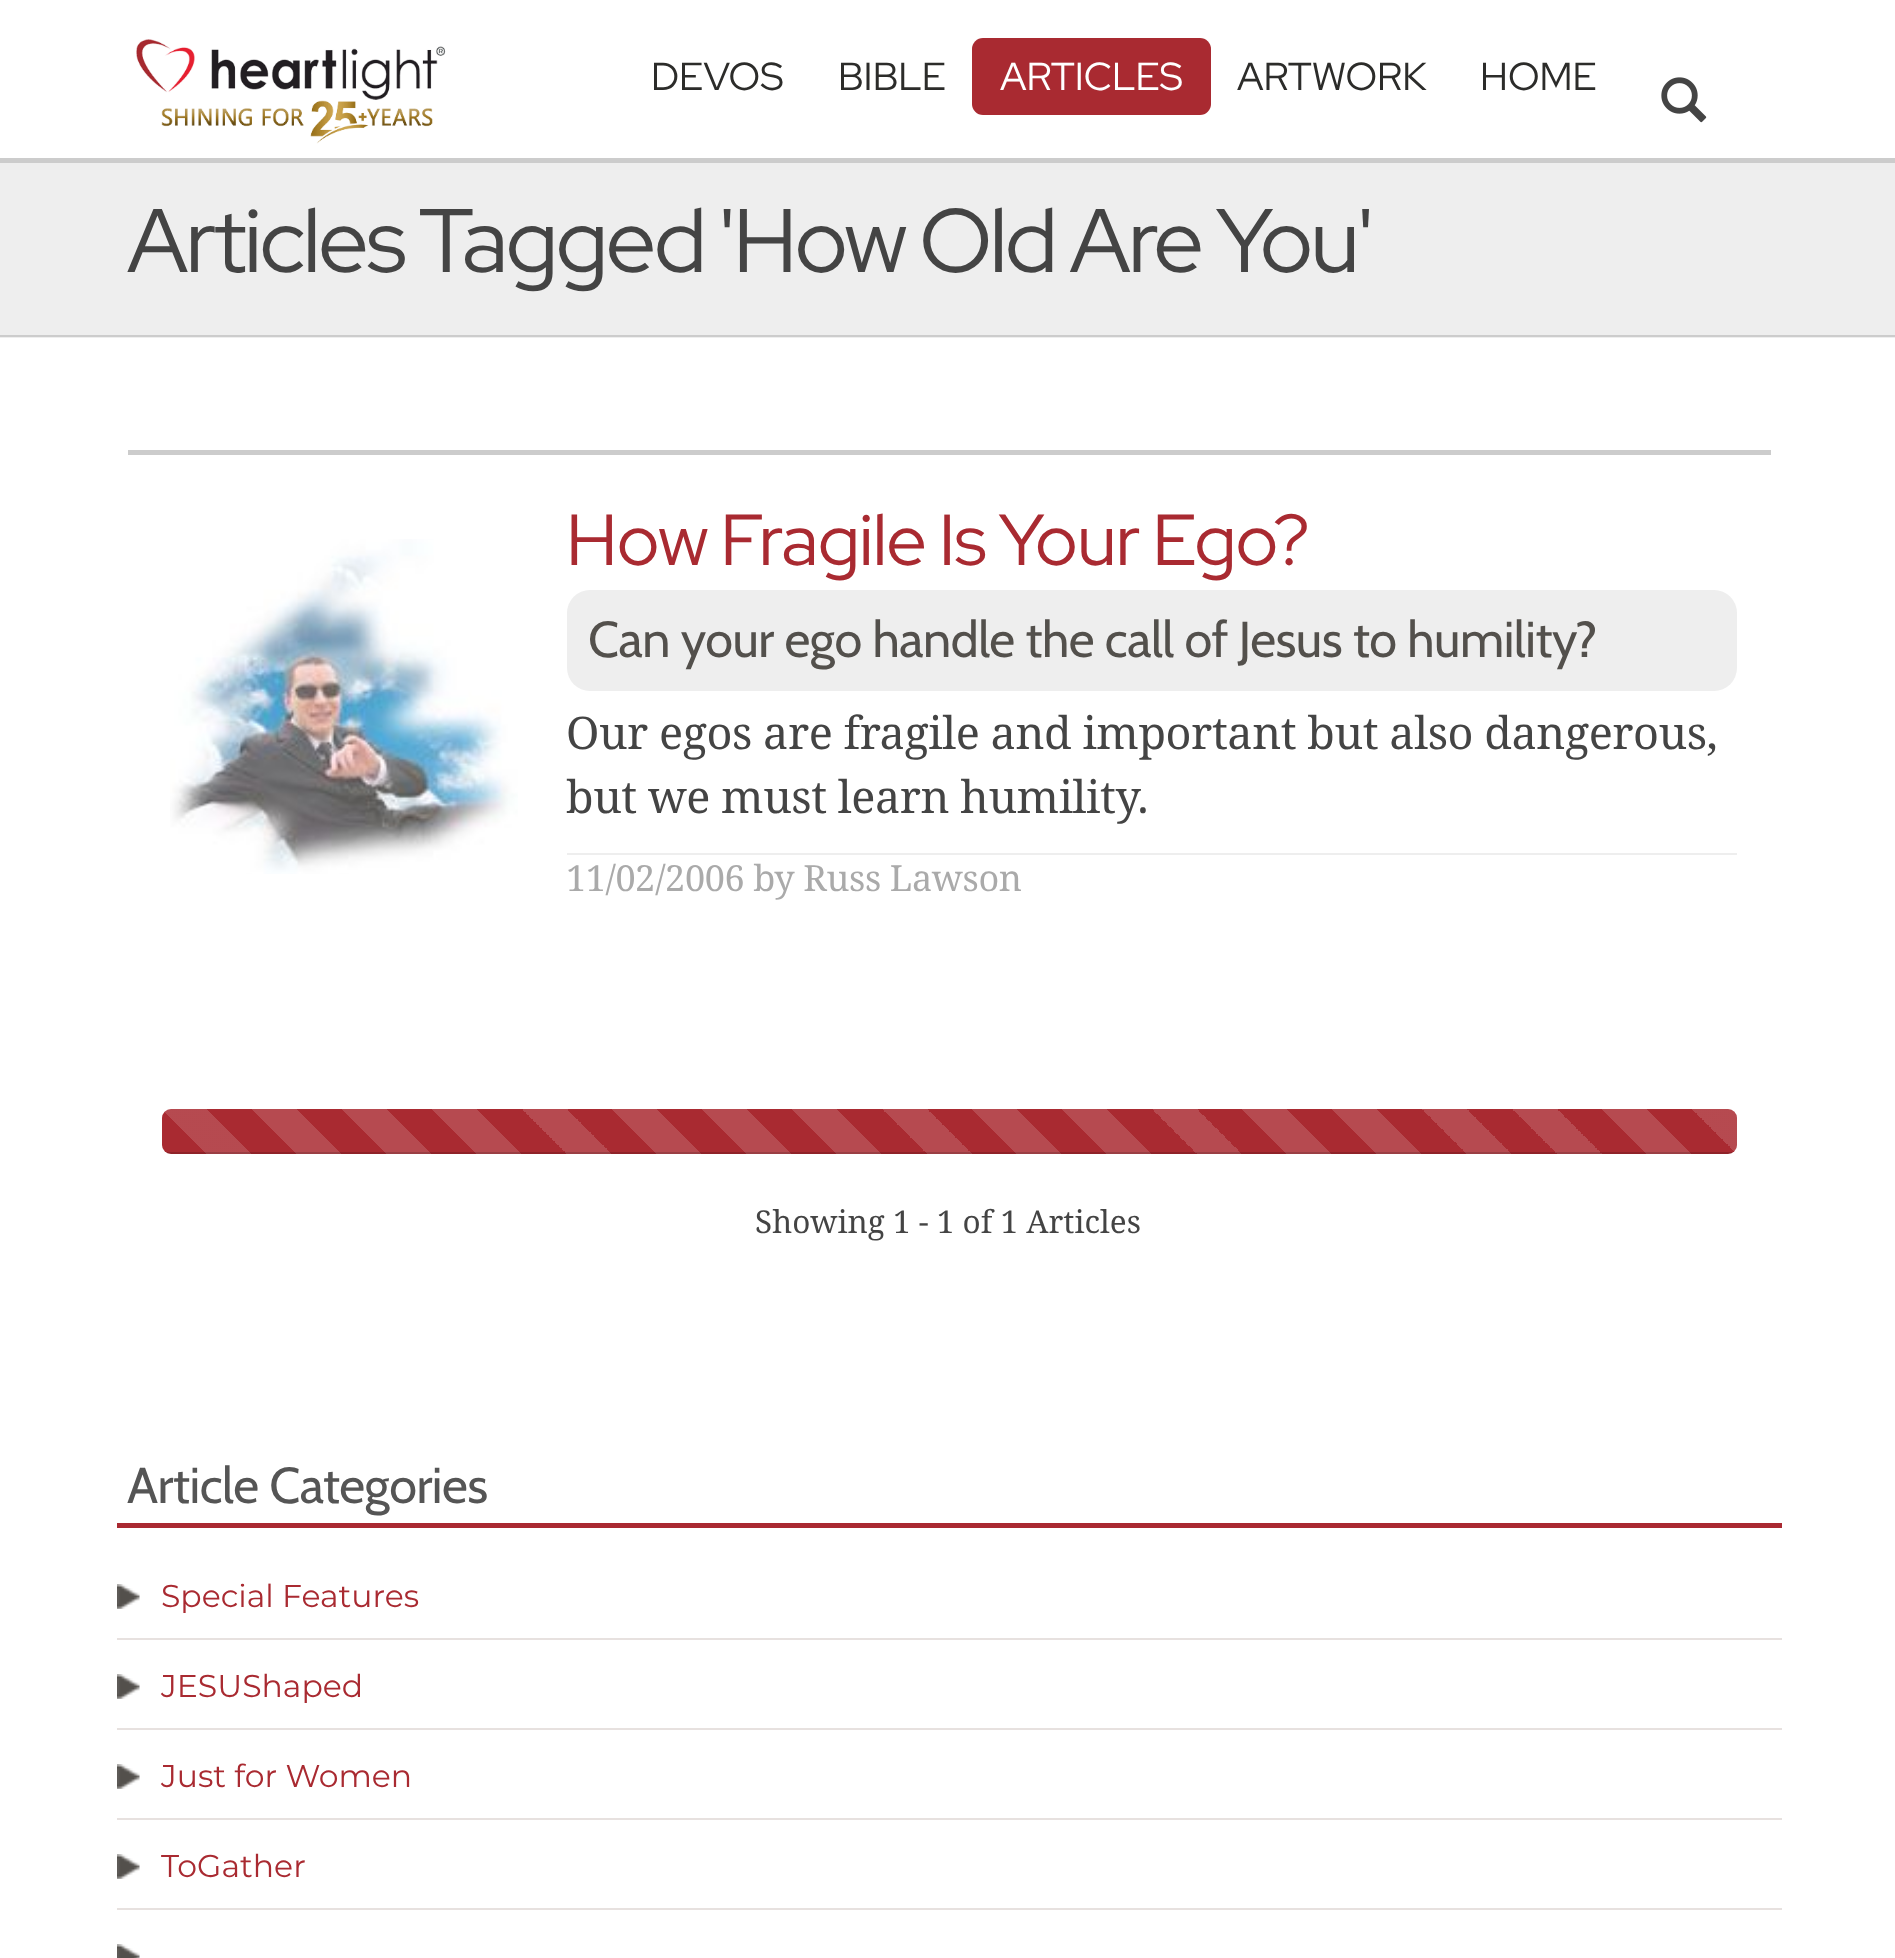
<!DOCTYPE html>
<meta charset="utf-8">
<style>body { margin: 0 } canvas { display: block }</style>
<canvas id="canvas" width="1895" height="1958"></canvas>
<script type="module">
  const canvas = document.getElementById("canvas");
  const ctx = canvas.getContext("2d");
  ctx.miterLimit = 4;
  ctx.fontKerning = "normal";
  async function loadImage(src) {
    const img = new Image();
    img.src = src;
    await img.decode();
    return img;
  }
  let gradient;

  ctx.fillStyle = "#ffffff";
  ctx.fillRect(0, 0, 1895, 1958);
  ctx.fillStyle = "#cccccc";
  ctx.fillRect(0, 158, 1895, 5);
  ctx.drawImage(await loadImage("img1.png"), 136, 39, 310, 105);
  ctx.font = "39px Red Hat Display";
  ctx.fillStyle = "#2c2c2a";
  ctx.fillText("DEVOS", 651, 90);
  ctx.fillText("BIBLE", 838, 90);
  ctx.fillStyle = "#a92a31";
  ctx.beginPath();
  ctx.roundRect(972, 38, 239, 77, 11);
  ctx.fill();
  ctx.fillStyle = "#ffffff";
  ctx.fillText("ARTICLES", 1000, 90);
  ctx.fillStyle = "#2c2c2a";
  ctx.fillText("ARTWORK", 1237, 90);
  ctx.fillText("HOME", 1480, 90);
  ctx.drawImage(await loadImage("img2.png"), 1661, 77, 46, 46);
  ctx.fillStyle = "#eeeeee";
  ctx.fillRect(0, 163, 1895, 175);
  ctx.fillStyle = "#cccccc";
  ctx.fillRect(0, 335, 1895, 2);
  ctx.letterSpacing = "-2.7px";
  ctx.wordSpacing = "-2.25px";
  ctx.font = "90px Red Hat Display";
  ctx.fillStyle = "#444444";
  ctx.fillText("Articles Tagged 'How Old Are You'", 127, 272);
  ctx.fillStyle = "#cccccc";
  ctx.fillRect(128, 450, 1643, 5);
  ctx.drawImage(await loadImage("img3.png"), 170, 539, 348, 335);
  ctx.letterSpacing = "-0.75px";
  ctx.font = "72px Red Hat Display";
  ctx.fillStyle = "#a92a31";
  ctx.fillText("How Fragile Is Your Ego?", 566, 565);
  ctx.fillStyle = "#eeeeee";
  ctx.beginPath();
  ctx.roundRect(567, 590, 1170, 101, 23);
  ctx.fill();
  ctx.letterSpacing = "-0.5px";
  ctx.wordSpacing = "0px";
  ctx.font = "50.4px Cabin";
  ctx.fillStyle = "#53504c";
  ctx.fillText("Can your ego handle the call of Jesus to humility?", 588, 657);
  ctx.letterSpacing = "-0.45px";
  ctx.font = "45px Droid Serif";
  ctx.fillStyle = "#444444";
  ctx.fillText("Our egos are fragile and important but also dangerous,", 566, 749);
  ctx.fillText("but we must learn humility.", 566, 813);
  ctx.fillStyle = "#eeeeee";
  ctx.fillRect(567, 853, 1170, 2);
  ctx.letterSpacing = "-0.35px";
  ctx.font = "36px Droid Serif";
  ctx.fillStyle = "#aaaaaa";
  ctx.fillText("11/02/2006 by Russ Lawson", 566, 891);
  ctx.fillStyle = "#a92a31";
  ctx.beginPath();
  ctx.roundRect(162, 1109, 1575, 45, 9);
  ctx.fill();
  gradient = ctx.createLinearGradient(162, 1199, 252, 1109);
  gradient.addColorStop(0.25, "rgba(255, 255, 255, 0.15)");
  gradient.addColorStop(0.25, "rgba(255, 255, 255, 0)");
  gradient.addColorStop(0.5, "rgba(255, 255, 255, 0)");
  gradient.addColorStop(0.5, "rgba(255, 255, 255, 0.15)");
  gradient.addColorStop(0.75, "rgba(255, 255, 255, 0.15)");
  gradient.addColorStop(0.75, "rgba(255, 255, 255, 0)");
  gradient.addColorStop(1, "rgba(0, 0, 0, 0)");
  ctx.fillStyle = gradient;
  ctx.beginPath();
  ctx.roundRect(162, 1109, 90, 45, [9, 0, 0, 9]);
  ctx.fill();
  gradient = ctx.createLinearGradient(252, 1199, 342, 1109);
  gradient.addColorStop(0.25, "#b64a50");
  gradient.addColorStop(0.25, "#a92a31");
  gradient.addColorStop(0.5, "#a92a31");
  gradient.addColorStop(0.5, "#b64a50");
  gradient.addColorStop(0.75, "#b64a50");
  gradient.addColorStop(0.75, "#a92a31");
  gradient.addColorStop(1, "#a92a31");
  ctx.fillStyle = gradient;
  ctx.fillRect(252, 1109, 90, 45);
  gradient = ctx.createLinearGradient(342, 1199, 432, 1109);
  gradient.addColorStop(0.25, "#b64a50");
  gradient.addColorStop(0.25, "#a92a31");
  gradient.addColorStop(0.5, "#a92a31");
  gradient.addColorStop(0.5, "#b64a50");
  gradient.addColorStop(0.75, "#b64a50");
  gradient.addColorStop(0.75, "#a92a31");
  gradient.addColorStop(1, "#a92a31");
  ctx.fillStyle = gradient;
  ctx.fillRect(342, 1109, 90, 45);
  gradient = ctx.createLinearGradient(432, 1199, 522, 1109);
  gradient.addColorStop(0.25, "#b64a50");
  gradient.addColorStop(0.25, "#a92a31");
  gradient.addColorStop(0.5, "#a92a31");
  gradient.addColorStop(0.5, "#b64a50");
  gradient.addColorStop(0.75, "#b64a50");
  gradient.addColorStop(0.75, "#a92a31");
  gradient.addColorStop(1, "#a92a31");
  ctx.fillStyle = gradient;
  ctx.fillRect(432, 1109, 90, 45);
  gradient = ctx.createLinearGradient(522, 1199, 612, 1109);
  gradient.addColorStop(0.25, "#b64a50");
  gradient.addColorStop(0.25, "#a92a31");
  gradient.addColorStop(0.5, "#a92a31");
  gradient.addColorStop(0.5, "#b64a50");
  gradient.addColorStop(0.75, "#b64a50");
  gradient.addColorStop(0.75, "#a92a31");
  gradient.addColorStop(1, "#a92a31");
  ctx.fillStyle = gradient;
  ctx.fillRect(522, 1109, 90, 45);
  gradient = ctx.createLinearGradient(612, 1199, 702, 1109);
  gradient.addColorStop(0.25, "#b64a50");
  gradient.addColorStop(0.25, "#a92a31");
  gradient.addColorStop(0.5, "#a92a31");
  gradient.addColorStop(0.5, "#b64a50");
  gradient.addColorStop(0.75, "#b64a50");
  gradient.addColorStop(0.75, "#a92a31");
  gradient.addColorStop(1, "#a92a31");
  ctx.fillStyle = gradient;
  ctx.fillRect(612, 1109, 90, 45);
  gradient = ctx.createLinearGradient(702, 1199, 792, 1109);
  gradient.addColorStop(0.25, "#b64a50");
  gradient.addColorStop(0.25, "#a92a31");
  gradient.addColorStop(0.5, "#a92a31");
  gradient.addColorStop(0.5, "#b64a50");
  gradient.addColorStop(0.75, "#b64a50");
  gradient.addColorStop(0.75, "#a92a31");
  gradient.addColorStop(1, "#a92a31");
  ctx.fillStyle = gradient;
  ctx.fillRect(702, 1109, 90, 45);
  gradient = ctx.createLinearGradient(792, 1199, 882, 1109);
  gradient.addColorStop(0.25, "#b64a50");
  gradient.addColorStop(0.25, "#a92a31");
  gradient.addColorStop(0.5, "#a92a31");
  gradient.addColorStop(0.5, "#b64a50");
  gradient.addColorStop(0.75, "#b64a50");
  gradient.addColorStop(0.75, "#a92a31");
  gradient.addColorStop(1, "#a92a31");
  ctx.fillStyle = gradient;
  ctx.fillRect(792, 1109, 90, 45);
  gradient = ctx.createLinearGradient(882, 1199, 972, 1109);
  gradient.addColorStop(0.25, "#b64a50");
  gradient.addColorStop(0.25, "#a92a31");
  gradient.addColorStop(0.5, "#a92a31");
  gradient.addColorStop(0.5, "#b64a50");
  gradient.addColorStop(0.75, "#b64a50");
  gradient.addColorStop(0.75, "#a92a31");
  gradient.addColorStop(1, "#a92a31");
  ctx.fillStyle = gradient;
  ctx.fillRect(882, 1109, 90, 45);
  gradient = ctx.createLinearGradient(972, 1199, 1062, 1109);
  gradient.addColorStop(0.25, "#b64a50");
  gradient.addColorStop(0.25, "#a92a31");
  gradient.addColorStop(0.5, "#a92a31");
  gradient.addColorStop(0.5, "#b64a50");
  gradient.addColorStop(0.75, "#b64a50");
  gradient.addColorStop(0.75, "#a92a31");
  gradient.addColorStop(1, "#a92a31");
  ctx.fillStyle = gradient;
  ctx.fillRect(972, 1109, 90, 45);
  gradient = ctx.createLinearGradient(1062, 1199, 1152, 1109);
  gradient.addColorStop(0.25, "#b64a50");
  gradient.addColorStop(0.25, "#a92a31");
  gradient.addColorStop(0.5, "#a92a31");
  gradient.addColorStop(0.5, "#b64a50");
  gradient.addColorStop(0.75, "#b64a50");
  gradient.addColorStop(0.75, "#a92a31");
  gradient.addColorStop(1, "#a92a31");
  ctx.fillStyle = gradient;
  ctx.fillRect(1062, 1109, 90, 45);
  gradient = ctx.createLinearGradient(1152, 1199, 1242, 1109);
  gradient.addColorStop(0.25, "#b64a50");
  gradient.addColorStop(0.25, "#a92a31");
  gradient.addColorStop(0.5, "#a92a31");
  gradient.addColorStop(0.5, "#b64a50");
  gradient.addColorStop(0.75, "#b64a50");
  gradient.addColorStop(0.75, "#a92a31");
  gradient.addColorStop(1, "#a92a31");
  ctx.fillStyle = gradient;
  ctx.fillRect(1152, 1109, 90, 45);
  gradient = ctx.createLinearGradient(1242, 1199, 1332, 1109);
  gradient.addColorStop(0.25, "#b64a50");
  gradient.addColorStop(0.25, "#a92a31");
  gradient.addColorStop(0.5, "#a92a31");
  gradient.addColorStop(0.5, "#b64a50");
  gradient.addColorStop(0.75, "#b64a50");
  gradient.addColorStop(0.75, "#a92a31");
  gradient.addColorStop(1, "#a92a31");
  ctx.fillStyle = gradient;
  ctx.fillRect(1242, 1109, 90, 45);
  gradient = ctx.createLinearGradient(1332, 1199, 1422, 1109);
  gradient.addColorStop(0.25, "#b64a50");
  gradient.addColorStop(0.25, "#a92a31");
  gradient.addColorStop(0.5, "#a92a31");
  gradient.addColorStop(0.5, "#b64a50");
  gradient.addColorStop(0.75, "#b64a50");
  gradient.addColorStop(0.75, "#a92a31");
  gradient.addColorStop(1, "#a92a31");
  ctx.fillStyle = gradient;
  ctx.fillRect(1332, 1109, 90, 45);
  gradient = ctx.createLinearGradient(1422, 1199, 1512, 1109);
  gradient.addColorStop(0.25, "#b64a50");
  gradient.addColorStop(0.25, "#a92a31");
  gradient.addColorStop(0.5, "#a92a31");
  gradient.addColorStop(0.5, "#b64a50");
  gradient.addColorStop(0.75, "#b64a50");
  gradient.addColorStop(0.75, "#a92a31");
  gradient.addColorStop(1, "#a92a31");
  ctx.fillStyle = gradient;
  ctx.fillRect(1422, 1109, 90, 45);
  gradient = ctx.createLinearGradient(1512, 1199, 1602, 1109);
  gradient.addColorStop(0.25, "#b64a50");
  gradient.addColorStop(0.25, "#a92a31");
  gradient.addColorStop(0.5, "#a92a31");
  gradient.addColorStop(0.5, "#b64a50");
  gradient.addColorStop(0.75, "#b64a50");
  gradient.addColorStop(0.75, "#a92a31");
  gradient.addColorStop(1, "#a92a31");
  ctx.fillStyle = gradient;
  ctx.fillRect(1512, 1109, 90, 45);
  gradient = ctx.createLinearGradient(1602, 1199, 1692, 1109);
  gradient.addColorStop(0.25, "#b64a50");
  gradient.addColorStop(0.25, "#a92a31");
  gradient.addColorStop(0.5, "#a92a31");
  gradient.addColorStop(0.5, "#b64a50");
  gradient.addColorStop(0.75, "#b64a50");
  gradient.addColorStop(0.75, "#a92a31");
  gradient.addColorStop(1, "#a92a31");
  ctx.fillStyle = gradient;
  ctx.fillRect(1602, 1109, 90, 45);
  gradient = ctx.createLinearGradient(1692, 1199, 1782, 1109);
  gradient.addColorStop(0.25, "rgba(255, 255, 255, 0.15)");
  gradient.addColorStop(0.25, "rgba(255, 255, 255, 0)");
  gradient.addColorStop(0.5, "rgba(255, 255, 255, 0)");
  gradient.addColorStop(0.5, "rgba(255, 255, 255, 0.15)");
  gradient.addColorStop(0.75, "rgba(255, 255, 255, 0.15)");
  gradient.addColorStop(0.75, "rgba(255, 255, 255, 0)");
  gradient.addColorStop(1, "rgba(0, 0, 0, 0)");
  ctx.fillStyle = gradient;
  ctx.beginPath();
  ctx.roundRect(1692, 1109, 45, 45, [0, 9, 9, 0]);
  ctx.fill();
  ctx.save();
  ctx.beginPath();
  ctx.roundRect(162, 1109, 1575, 45, 9);
  ctx.clip();
  ctx.fillStyle = "rgba(0, 0, 0, 0.15)";
  ctx.fillRect(162, 1152, 1575, 2);
  ctx.restore();
  ctx.letterSpacing = "0px";
  ctx.font = "31.5px Droid Serif";
  ctx.fillStyle = "#444444";
  ctx.fillText("Showing 1 - 1 of 1 Articles", 755, 1233);
  ctx.fillStyle = "#a92931";
  ctx.fillRect(117, 1523, 1665, 5);
  ctx.letterSpacing = "-0.5px";
  ctx.font = "50.4px Cabin";
  ctx.fillStyle = "#555555";
  ctx.fillText("Article Categories", 127, 1503);
  ctx.drawImage(await loadImage("img4.png"), 117, 1584, 23, 25);
  ctx.letterSpacing = "0px";
  ctx.font = "31.5px Montserrat";
  ctx.fillStyle = "#a92a31";
  ctx.fillText("Special Features", 161, 1607);
  ctx.drawImage(await loadImage("img4.png"), 117, 1674, 23, 25);
  ctx.fillStyle = "#e7e1df";
  ctx.fillRect(117, 1638, 1665, 2);
  ctx.fillStyle = "#a92a31";
  ctx.fillText("JESUShaped", 161, 1697);
  ctx.drawImage(await loadImage("img4.png"), 117, 1764, 23, 25);
  ctx.fillStyle = "#e7e1df";
  ctx.fillRect(117, 1728, 1665, 2);
  ctx.fillStyle = "#a92a31";
  ctx.fillText("Just for Women", 161, 1787);
  ctx.drawImage(await loadImage("img4.png"), 117, 1854, 23, 25);
  ctx.fillStyle = "#e7e1df";
  ctx.fillRect(117, 1818, 1665, 2);
  ctx.fillStyle = "#a92a31";
  ctx.fillText("ToGather", 161, 1877);
  ctx.drawImage(await loadImage("img5.png"), 117, 1944, 23, 14);
  ctx.fillStyle = "#e7e1df";
  ctx.fillRect(117, 1908, 1665, 2);
</script>
